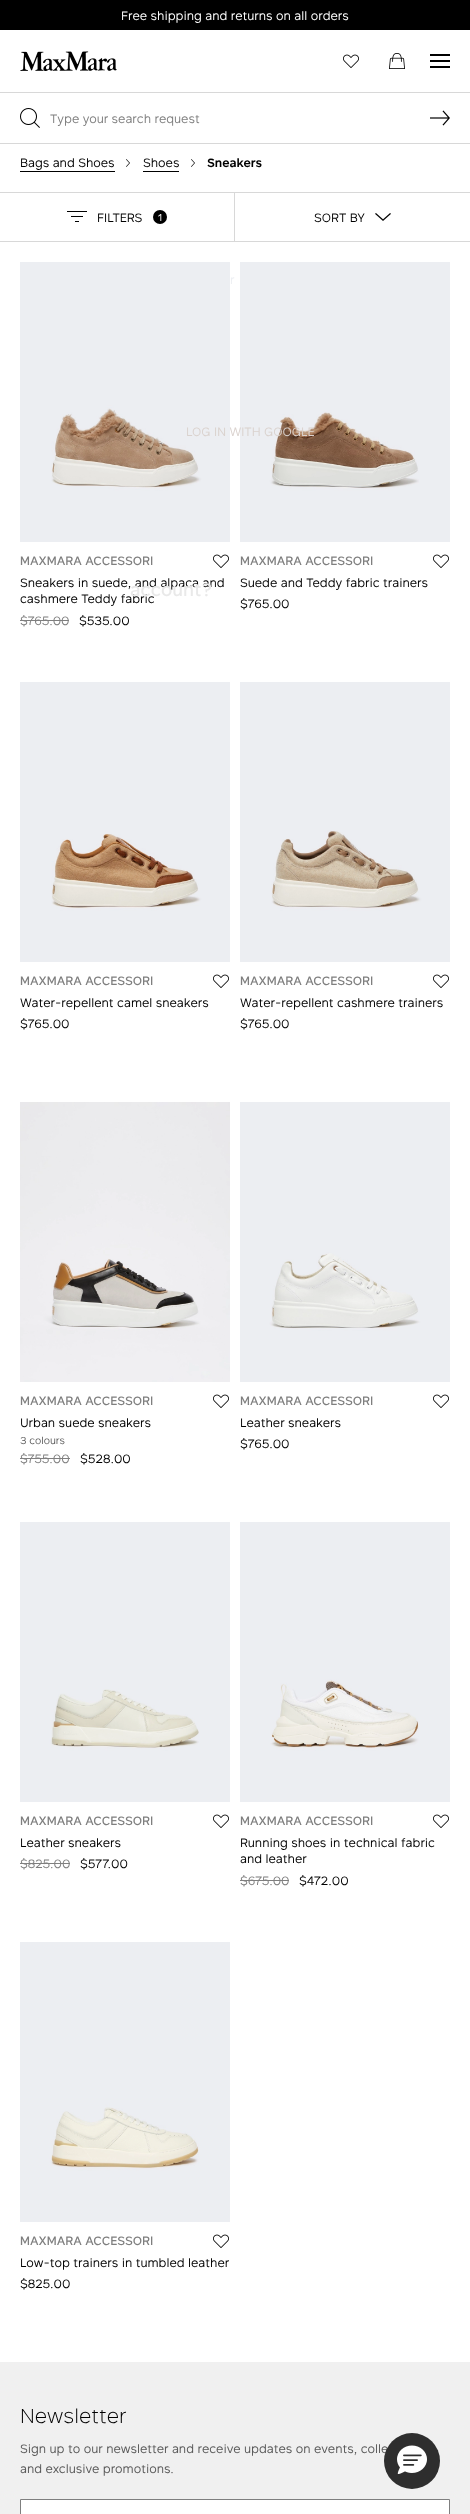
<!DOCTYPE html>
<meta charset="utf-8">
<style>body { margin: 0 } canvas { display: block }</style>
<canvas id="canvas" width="470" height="2514"></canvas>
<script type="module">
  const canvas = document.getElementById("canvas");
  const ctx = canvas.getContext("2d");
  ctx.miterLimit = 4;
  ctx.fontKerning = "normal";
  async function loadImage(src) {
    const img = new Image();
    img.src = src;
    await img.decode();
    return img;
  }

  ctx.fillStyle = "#ffffff";
  ctx.fillRect(0, 0, 470, 2514);
  ctx.fillStyle = "#000000";
  ctx.fillRect(0, 0, 470, 30);
  ctx.font = "12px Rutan";
  ctx.fillStyle = "#ffffff";
  ctx.fillText("Free shipping and returns on all orders", 121, 20);
  ctx.drawImage(await loadImage("img1.png"), 20, 51, 97, 20);
  ctx.drawImage(await loadImage("img2.png"), 343, 54, 16, 14);
  ctx.drawImage(await loadImage("img3.png"), 389, 53, 16, 16);
  ctx.fillStyle = "#000000";
  ctx.fillRect(430, 54, 20, 2);
  ctx.fillRect(430, 60, 20, 2);
  ctx.fillRect(430, 66, 20, 2);
  ctx.fillStyle = "#d8d8d8";
  ctx.fillRect(0, 92, 470, 1);
  ctx.fillRect(0, 143, 470, 1);
  ctx.drawImage(await loadImage("img4.png"), 20, 108, 20, 20);
  ctx.fillStyle = "#7f7f7f";
  ctx.fillText("Type your search request", 50, 123);
  ctx.drawImage(await loadImage("img5.png"), 430, 110, 20, 16);
  ctx.fillStyle = "#000000";
  ctx.fillRect(20, 171, 95, 1);
  ctx.fillText("Bags and Shoes", 20, 167);
  ctx.drawImage(await loadImage("img6.png"), 126, 159, 4, 8);
  ctx.fillRect(143, 171, 36, 1);
  ctx.fillText("Shoes", 143, 167);
  ctx.drawImage(await loadImage("img6.png"), 191, 159, 4, 8);
  ctx.font = "600 12px Rutan";
  ctx.fillText("Sneakers", 207, 167);
  ctx.fillStyle = "#d8d8d8";
  ctx.fillRect(0, 192, 470, 1);
  ctx.fillRect(234, 192, 1, 50);
  ctx.fillRect(0, 241, 470, 1);
  ctx.drawImage(await loadImage("img7.png"), 67, 211, 20, 11);
  ctx.font = "12px Rutan";
  ctx.fillStyle = "#000000";
  ctx.fillText("FILTERS", 97, 222);
  ctx.beginPath();
  ctx.arc(160, 217, 7, 0, Math.PI * 2);
  ctx.fill();
  ctx.font = "10px Rutan";
  ctx.fillStyle = "#ffffff";
  ctx.fillText("1", 158, 221);
  ctx.font = "12px Rutan";
  ctx.fillStyle = "#000000";
  ctx.fillText("SORT BY", 314, 222);
  ctx.drawImage(await loadImage("img8.png"), 375, 213, 16, 8);
  ctx.drawImage(await loadImage("img9.png"), 20, 262, 210, 280);
  ctx.font = "500 12px Rutan";
  ctx.fillStyle = "#7f7f7f";
  ctx.fillText("MAXMARA ACCESSORI", 20, 565);
  ctx.drawImage(await loadImage("img2.png"), 213, 554, 16, 14);
  ctx.font = "12px Rutan";
  ctx.fillStyle = "#000000";
  ctx.fillText("Sneakers in suede, and alpaca and", 20, 587);
  ctx.fillText("cashmere Teddy fabric", 20, 603);
  ctx.fillStyle = "#7f7f7f";
  ctx.fillText("$765.00", 20, 625);
  ctx.fillRect(20, 620, 49, 1);
  ctx.fillStyle = "#000000";
  ctx.fillText("$535.00", 79, 625);
  ctx.drawImage(await loadImage("img10.png"), 240, 262, 210, 280);
  ctx.font = "500 12px Rutan";
  ctx.fillStyle = "#7f7f7f";
  ctx.fillText("MAXMARA ACCESSORI", 240, 565);
  ctx.drawImage(await loadImage("img2.png"), 433, 554, 16, 14);
  ctx.font = "12px Rutan";
  ctx.fillStyle = "#000000";
  ctx.fillText("Suede and Teddy fabric trainers", 240, 587);
  ctx.fillText("$765.00", 240, 608);
  ctx.drawImage(await loadImage("img11.png"), 20, 682, 210, 280);
  ctx.font = "500 12px Rutan";
  ctx.fillStyle = "#7f7f7f";
  ctx.fillText("MAXMARA ACCESSORI", 20, 985);
  ctx.drawImage(await loadImage("img2.png"), 213, 974, 16, 14);
  ctx.font = "12px Rutan";
  ctx.fillStyle = "#000000";
  ctx.fillText("Water-repellent camel sneakers", 20, 1007);
  ctx.fillText("$765.00", 20, 1028);
  ctx.drawImage(await loadImage("img12.png"), 240, 682, 210, 280);
  ctx.font = "500 12px Rutan";
  ctx.fillStyle = "#7f7f7f";
  ctx.fillText("MAXMARA ACCESSORI", 240, 985);
  ctx.drawImage(await loadImage("img2.png"), 433, 974, 16, 14);
  ctx.font = "12px Rutan";
  ctx.fillStyle = "#000000";
  ctx.fillText("Water-repellent cashmere trainers", 240, 1007);
  ctx.fillText("$765.00", 240, 1028);
  ctx.drawImage(await loadImage("img13.png"), 20, 1102, 210, 280);
  ctx.font = "500 12px Rutan";
  ctx.fillStyle = "#7f7f7f";
  ctx.fillText("MAXMARA ACCESSORI", 20, 1405);
  ctx.drawImage(await loadImage("img2.png"), 213, 1394, 16, 14);
  ctx.font = "12px Rutan";
  ctx.fillStyle = "#000000";
  ctx.fillText("Urban suede sneakers", 20, 1427);
  ctx.font = "10px Rutan";
  ctx.fillStyle = "#595959";
  ctx.fillText("3 colours", 20, 1444);
  ctx.font = "12px Rutan";
  ctx.fillStyle = "#7f7f7f";
  ctx.fillText("$755.00", 20, 1463);
  ctx.fillRect(20, 1458, 50, 1);
  ctx.fillStyle = "#000000";
  ctx.fillText("$528.00", 80, 1463);
  ctx.drawImage(await loadImage("img14.png"), 240, 1102, 210, 280);
  ctx.font = "500 12px Rutan";
  ctx.fillStyle = "#7f7f7f";
  ctx.fillText("MAXMARA ACCESSORI", 240, 1405);
  ctx.drawImage(await loadImage("img2.png"), 433, 1394, 16, 14);
  ctx.font = "12px Rutan";
  ctx.fillStyle = "#000000";
  ctx.fillText("Leather sneakers", 240, 1427);
  ctx.fillText("$765.00", 240, 1448);
  ctx.drawImage(await loadImage("img15.png"), 20, 1522, 210, 280);
  ctx.font = "500 12px Rutan";
  ctx.fillStyle = "#7f7f7f";
  ctx.fillText("MAXMARA ACCESSORI", 20, 1825);
  ctx.drawImage(await loadImage("img2.png"), 213, 1814, 16, 14);
  ctx.font = "12px Rutan";
  ctx.fillStyle = "#000000";
  ctx.fillText("Leather sneakers", 20, 1847);
  ctx.fillStyle = "#7f7f7f";
  ctx.fillText("$825.00", 20, 1868);
  ctx.fillRect(20, 1863, 50, 1);
  ctx.fillStyle = "#000000";
  ctx.fillText("$577.00", 80, 1868);
  ctx.drawImage(await loadImage("img16.png"), 240, 1522, 210, 280);
  ctx.font = "500 12px Rutan";
  ctx.fillStyle = "#7f7f7f";
  ctx.fillText("MAXMARA ACCESSORI", 240, 1825);
  ctx.drawImage(await loadImage("img2.png"), 433, 1814, 16, 14);
  ctx.font = "12px Rutan";
  ctx.fillStyle = "#000000";
  ctx.fillText("Running shoes in technical fabric", 240, 1847);
  ctx.fillText("and leather", 240, 1863);
  ctx.fillStyle = "#7f7f7f";
  ctx.fillText("$675.00", 240, 1885);
  ctx.fillRect(240, 1880, 49, 1);
  ctx.fillStyle = "#000000";
  ctx.fillText("$472.00", 299, 1885);
  ctx.drawImage(await loadImage("img17.png"), 20, 1942, 210, 280);
  ctx.font = "500 12px Rutan";
  ctx.fillStyle = "#7f7f7f";
  ctx.fillText("MAXMARA ACCESSORI", 20, 2245);
  ctx.drawImage(await loadImage("img2.png"), 213, 2234, 16, 14);
  ctx.font = "12px Rutan";
  ctx.fillStyle = "#000000";
  ctx.fillText("Low-top trainers in tumbled leather", 20, 2267);
  ctx.fillText("$825.00", 20, 2288);
  ctx.fillStyle = "#f0f0f0";
  ctx.fillRect(0, 2362, 470, 152);
  ctx.font = "300 20px Rutan";
  ctx.fillStyle = "#000000";
  ctx.fillText("Newsletter", 20, 2423);
  ctx.font = "12px Rutan";
  ctx.fillStyle = "#595959";
  ctx.fillText("Sign up to our newsletter and receive updates on events, colle", 20, 2453);
  ctx.fillText("and exclusive promotions.", 20, 2473);
  ctx.fillStyle = "#ffffff";
  ctx.beginPath();
  ctx.rect(20.5, 2499.5, 429, 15);
  ctx.fill();
  ctx.strokeStyle = "#7f7f7f";
  ctx.stroke();
  ctx.fillStyle = "#edeff3";
  ctx.fillText("r", 230, 284);
  ctx.fillStyle = "#dad2ce";
  ctx.fillText("LOG IN WITH GOOGLE", 186, 436);
  ctx.font = "500 18px Rutan";
  ctx.fillStyle = "#e9e9e9";
  ctx.fillText("account?", 130, 596);
  ctx.fillStyle = "#2e2e2e";
  ctx.beginPath();
  ctx.arc(412, 2461, 28, 0, Math.PI * 2);
  ctx.fill();
  ctx.drawImage(await loadImage("img18.png"), 397, 2445, 30, 29);
</script>
